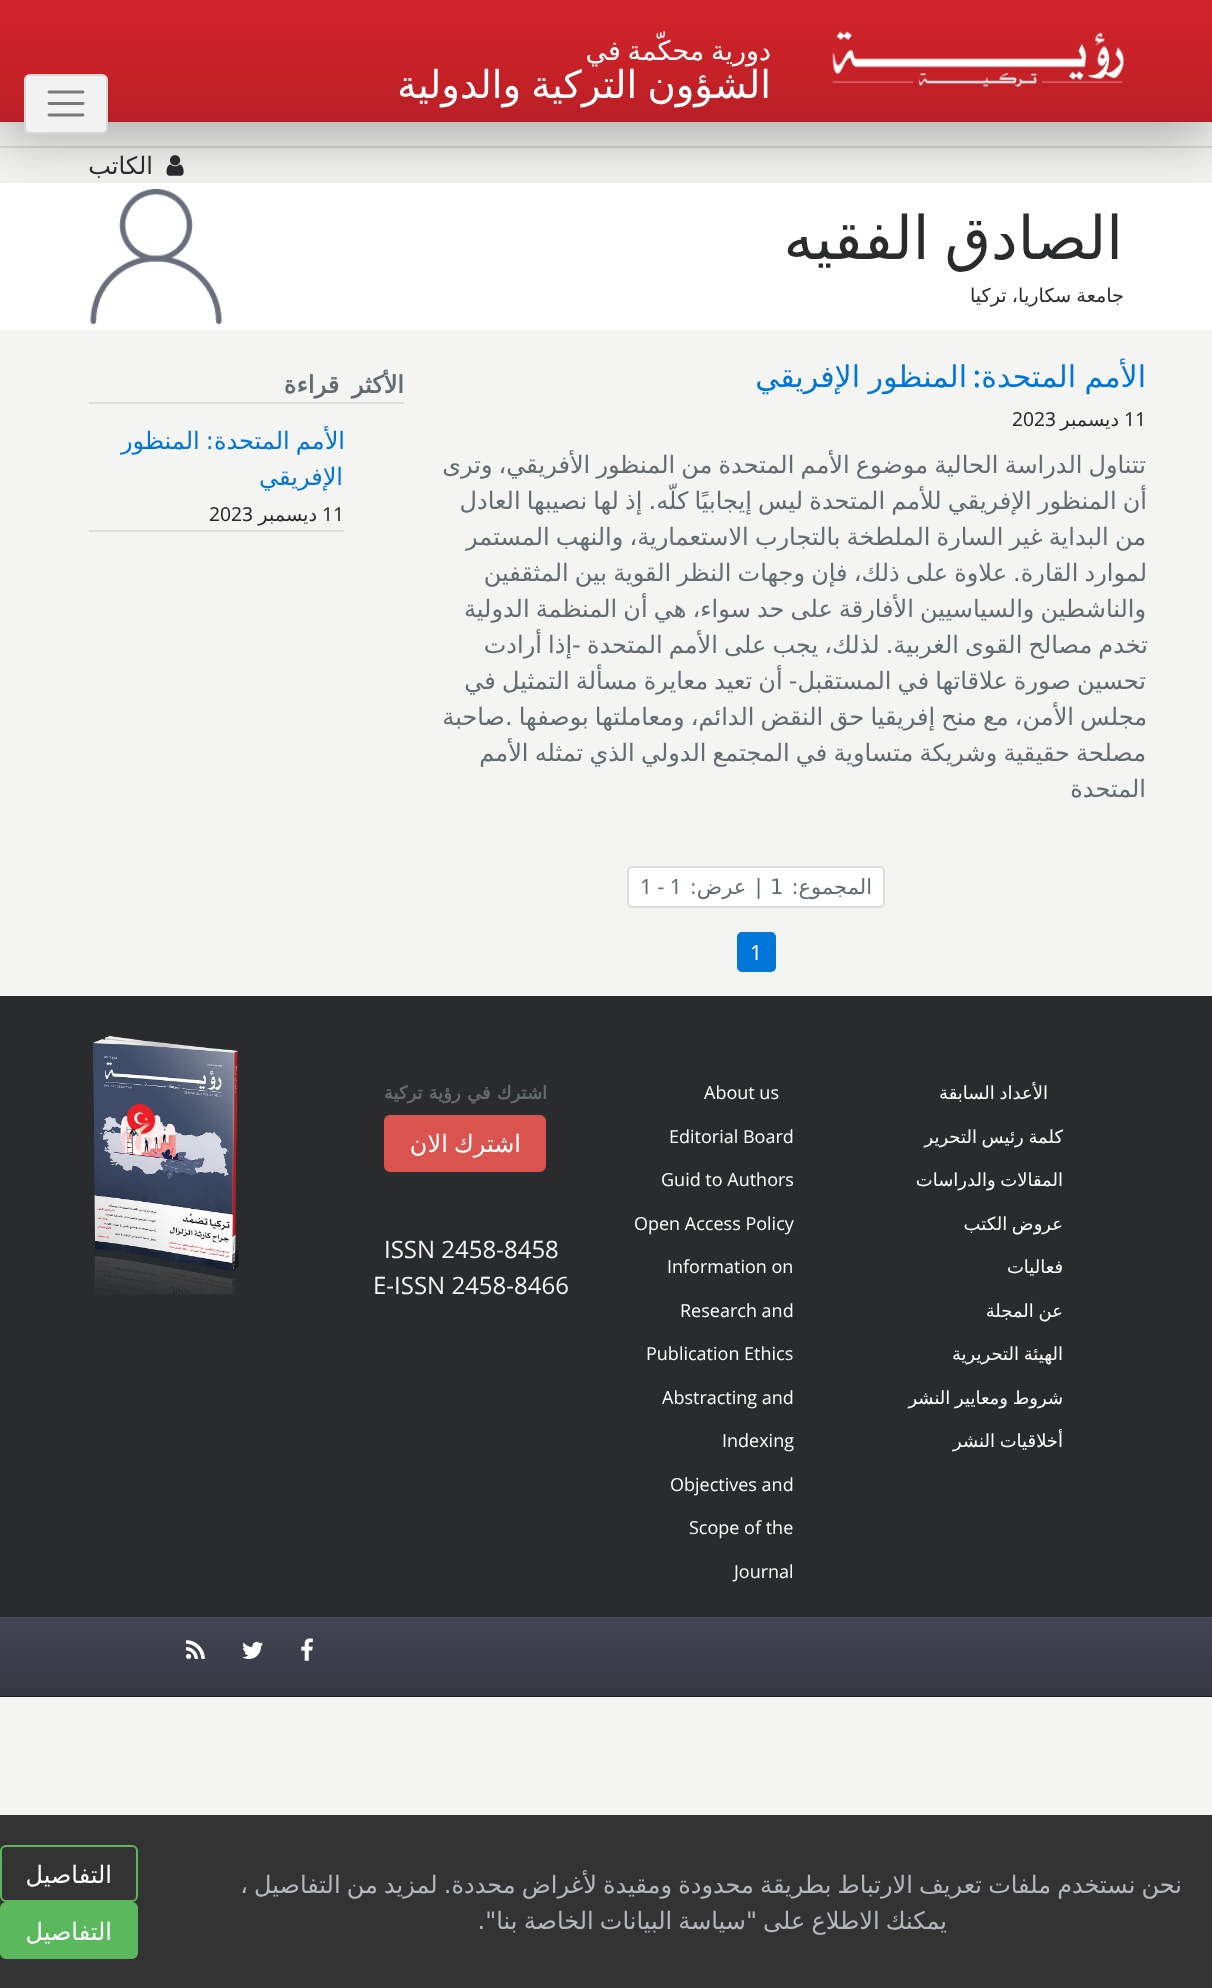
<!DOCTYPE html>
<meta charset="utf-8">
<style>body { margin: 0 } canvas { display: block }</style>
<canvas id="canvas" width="1212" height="1988"></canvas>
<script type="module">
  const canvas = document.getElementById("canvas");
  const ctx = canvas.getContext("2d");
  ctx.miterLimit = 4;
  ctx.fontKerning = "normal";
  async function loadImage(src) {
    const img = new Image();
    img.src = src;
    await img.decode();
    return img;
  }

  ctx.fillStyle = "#f4f4f2";
  ctx.fillRect(0, 0, 1212, 1988);
  ctx.fillStyle = "rgba(0, 0, 0, 0.3)";
  ctx.filter = "blur(30px)";
  ctx.beginPath();
  ctx.rect(-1, 14, 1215, 124);
  ctx.fill();
  ctx.filter = "none";
  ctx.fillStyle = "#a01d26";
  ctx.fillRect(0, 0, 1212, 122);
  ctx.drawImage(await loadImage("img1.png"), 0, 0, 1212, 122);
  ctx.drawImage(await loadImage("img2.png"), 832, 31, 292, 56);
  ctx.wordSpacing = "-2px";
  ctx.direction = "rtl";
  ctx.font = "27px DejaVu Sans";
  ctx.fillStyle = "#ffffff";
  ctx.fillText("دورية محكّمة في", 771, 60);
  ctx.font = "38.5px DejaVu Sans";
  ctx.fillText("الشؤون التركية والدولية", 771, 98);
  ctx.fillStyle = "#f2f2f2";
  ctx.beginPath();
  ctx.roundRect(24, 74, 84, 60, 6);
  ctx.fill();
  ctx.beginPath();
  ctx.roundRect(25, 75, 82, 58, 5);
  ctx.strokeStyle = "rgba(0, 0, 0, 0.1)";
  ctx.lineWidth = 2;
  ctx.stroke();
  ctx.beginPath();
  ctx.moveTo(49, 92);
  ctx.lineTo(83, 92);
  ctx.moveTo(49, 103.5);
  ctx.lineTo(83, 103.5);
  ctx.moveTo(49, 115);
  ctx.lineTo(83, 115);
  ctx.strokeStyle = "#797979";
  ctx.lineWidth = 2.8;
  ctx.lineCap = "round";
  ctx.stroke();
  ctx.fillStyle = "rgba(0, 0, 0, 0.1)";
  ctx.fillRect(0, 146, 1212, 2);
  ctx.drawImage(await loadImage("img3.png"), 166, 155, 18, 21);
  ctx.wordSpacing = "0px";
  ctx.font = "24px DejaVu Sans";
  ctx.fillStyle = "#292b2c";
  ctx.fillText("الكاتب", 153, 174);
  ctx.fillStyle = "#ffffff";
  ctx.fillRect(0, 183, 1212, 147);
  ctx.wordSpacing = "-4px";
  ctx.font = "60px DejaVu Sans";
  ctx.fillStyle = "#292b2c";
  ctx.fillText("الصادق الفقيه", 1123, 259);
  ctx.wordSpacing = "-1px";
  ctx.font = "19.25px DejaVu Sans";
  ctx.fillText("جامعة سكاريا، تركيا", 1124, 302);
  ctx.drawImage(await loadImage("img4.png"), 90, 189, 132, 135);
  ctx.font = "30px DejaVu Sans";
  ctx.fillStyle = "#0275d8";
  ctx.fillText("الأمم المتحدة", 1146, 387);
  ctx.wordSpacing = "0px";
  ctx.font = "500 30px Noto Sans";
  ctx.fillText(":", 981, 387);
  ctx.wordSpacing = "-1px";
  ctx.font = "30px DejaVu Sans";
  ctx.fillText("المنظور الإفريقي", 967, 387);
  ctx.wordSpacing = "0px";
  ctx.direction = "ltr";
  ctx.font = "19.25px Noto Sans";
  ctx.fillStyle = "#292b2c";
  ctx.fillText("11", 1124, 426);
  ctx.direction = "rtl";
  ctx.font = "19.25px DejaVu Sans";
  ctx.fillText("ديسمبر", 1119, 426);
  ctx.direction = "ltr";
  ctx.font = "19.25px Noto Sans";
  ctx.fillText("2023", 1012, 426);
  ctx.wordSpacing = "-1.5px";
  ctx.direction = "rtl";
  ctx.font = "24px DejaVu Sans";
  ctx.fillStyle = "#636c72";
  ctx.fillText("تتناول الدراسة الحالية موضوع الأمم المتحدة من المنظور الأفريقي، وترى", 1146, 473);
  ctx.fillText("أن المنظور الإفريقي للأمم المتحدة ليس إيجابيًا كلّه. إذ لها نصيبها العادل", 1147, 509);
  ctx.fillText("من البداية غير السارة الملطخة بالتجارب الاستعمارية، والنهب المستمر", 1146, 545);
  ctx.fillText("لموارد القارة. علاوة على ذلك، فإن وجهات النظر القوية بين المثقفين", 1147, 581);
  ctx.fillText("والناشطين والسياسيين الأفارقة على حد سواء، هي أن المنظمة الدولية", 1146, 617);
  ctx.fillText("تخدم مصالح القوى الغربية. لذلك، يجب على الأمم المتحدة -إذا أرادت", 1148, 653);
  ctx.fillText("تحسين صورة علاقاتها في المستقبل- أن تعيد معايرة مسألة التمثيل في", 1146, 689);
  ctx.fillText("مجلس الأمن، مع منح إفريقيا حق النقض الدائم، ومعاملتها بوصفها .صاحبة", 1147, 725);
  ctx.fillText("مصلحة حقيقية وشريكة متساوية في المجتمع الدولي الذي تمثله الأمم", 1146, 761);
  ctx.wordSpacing = "0px";
  ctx.fillText("المتحدة", 1146, 797);
  ctx.fillStyle = "#ffffff";
  ctx.beginPath();
  ctx.roundRect(628, 867, 256, 40, 4);
  ctx.fill();
  ctx.strokeStyle = "#dddddd";
  ctx.lineWidth = 2;
  ctx.stroke();
  ctx.font = "21px DejaVu Sans";
  ctx.fillStyle = "#636c72";
  ctx.fillText("المجموع:", 872, 894);
  ctx.direction = "ltr";
  ctx.fillText("1", 770, 894);
  ctx.wordSpacing = "2px";
  ctx.direction = "rtl";
  ctx.fillText("| عرض:", 762, 894);
  ctx.wordSpacing = "0px";
  ctx.direction = "ltr";
  ctx.font = "21px Noto Sans";
  ctx.fillText("1 - 1", 640, 894);
  ctx.fillStyle = "#0275d8";
  ctx.beginPath();
  ctx.roundRect(738, 933, 37, 38, 4);
  ctx.fill();
  ctx.strokeStyle = "#0275d8";
  ctx.stroke();
  ctx.fillStyle = "#ffffff";
  ctx.fillText("1", 750, 960);
  ctx.fillStyle = "#dcdcdc";
  ctx.fillRect(89, 402, 315, 2);
  ctx.wordSpacing = "5px";
  ctx.direction = "rtl";
  ctx.font = "bold 24px DejaVu Sans";
  ctx.fillStyle = "#636c72";
  ctx.fillText("الأكثر قراءة", 404, 393);
  ctx.fillStyle = "#dcdcdc";
  ctx.fillRect(89, 530, 255, 2);
  ctx.wordSpacing = "-1.5px";
  ctx.font = "24px DejaVu Sans";
  ctx.fillStyle = "#0275d8";
  ctx.fillText("الأمم المتحدة: المنظور", 345, 449);
  ctx.wordSpacing = "0px";
  ctx.fillText("الإفريقي", 343, 485);
  ctx.direction = "ltr";
  ctx.font = "19.25px Noto Sans";
  ctx.fillStyle = "#292b2c";
  ctx.fillText("11", 322, 521);
  ctx.direction = "rtl";
  ctx.font = "19.25px DejaVu Sans";
  ctx.fillText("ديسمبر", 317, 521);
  ctx.direction = "ltr";
  ctx.font = "19.25px Noto Sans";
  ctx.fillText("2023", 209, 521);
  ctx.fillRect(0, 996, 1212, 621);
  ctx.wordSpacing = "-1px";
  ctx.direction = "rtl";
  ctx.font = "18px DejaVu Sans";
  ctx.fillStyle = "#ffffff";
  ctx.fillText("الأعداد السابقة", 1048, 1099);
  ctx.fillText("كلمة رئيس التحرير", 1063, 1143);
  ctx.fillText("المقالات والدراسات", 1063, 1186);
  ctx.fillText("عروض الكتب", 1063, 1230);
  ctx.wordSpacing = "0px";
  ctx.fillText("فعاليات", 1063, 1273);
  ctx.wordSpacing = "-1px";
  ctx.fillText("عن المجلة", 1063, 1317);
  ctx.fillText("الهيئة التحريرية", 1063, 1360);
  ctx.fillText("شروط ومعايير النشر", 1063, 1404);
  ctx.fillText("أخلاقيات النشر", 1063, 1447);
  ctx.wordSpacing = "0px";
  ctx.direction = "ltr";
  ctx.font = "18px Open Sans";
  ctx.fillText("About us", 704, 1099);
  ctx.fillText("Editorial Board", 669, 1143);
  ctx.fillText("Guid to Authors", 661, 1186);
  ctx.fillText("Open Access Policy", 634, 1230);
  ctx.fillText("Information on", 667, 1273);
  ctx.fillText("Research and", 680, 1317);
  ctx.fillText("Publication Ethics", 646, 1360);
  ctx.fillText("Abstracting and", 662, 1404);
  ctx.fillText("Indexing", 722, 1447);
  ctx.fillText("Objectives and", 670, 1491);
  ctx.fillText("Scope of the", 689, 1534);
  ctx.fillText("Journal", 734, 1578);
  ctx.wordSpacing = "0.5px";
  ctx.direction = "rtl";
  ctx.font = "bold 18px DejaVu Sans";
  ctx.fillStyle = "#636c72";
  ctx.fillText("اشترك في رؤية تركية", 547, 1099);
  ctx.fillStyle = "#d9534f";
  ctx.beginPath();
  ctx.roundRect(385, 1116, 160, 55, 5);
  ctx.fill();
  ctx.strokeStyle = "#d9534f";
  ctx.stroke();
  ctx.wordSpacing = "-1.5px";
  ctx.font = "24px DejaVu Sans";
  ctx.fillStyle = "#ffffff";
  ctx.fillText("اشترك الان", 521, 1152);
  ctx.wordSpacing = "0px";
  ctx.direction = "ltr";
  ctx.font = "24px Open Sans";
  ctx.fillStyle = "#f4f4f4";
  ctx.fillText("ISSN 2458-8458", 384, 1258);
  ctx.fillText("E-ISSN 2458-8466", 373, 1294);
  ctx.drawImage(await loadImage("img5.png"), 92, 1036, 147, 259);
  ctx.fillStyle = "#000000";
  ctx.fillRect(0, 1696, 1212, 1);
  ctx.drawImage(await loadImage("img6.png"), 0, 1617, 1212, 80);
  ctx.drawImage(await loadImage("img7.png"), 301, 1638, 12, 23);
  ctx.drawImage(await loadImage("img8.png"), 242, 1641, 21, 18);
  ctx.drawImage(await loadImage("img9.png"), 186, 1640, 19, 19);
  ctx.fillStyle = "#333333";
  ctx.fillRect(0, 1815, 1212, 173);
  ctx.wordSpacing = "-1.5px";
  ctx.direction = "rtl";
  ctx.font = "24px DejaVu Sans";
  ctx.fillStyle = "#b3b7bd";
  ctx.fillText("نحن نستخدم ملفات تعريف الارتباط بطريقة محدودة ومقيدة لأغراض محددة. لمزيد من التفاصيل ،", 1182, 1893);
  ctx.fillText("يمكنك الاطلاع على \"سياسة البيانات الخاصة بنا\".", 947, 1929);
  ctx.beginPath();
  ctx.roundRect(1, 1846, 136, 55, 5);
  ctx.strokeStyle = "#5cb85c";
  ctx.stroke();
  ctx.wordSpacing = "0px";
  ctx.fillStyle = "#ffffff";
  ctx.fillText("التفاصيل", 112, 1883);
  ctx.fillStyle = "#5cb85c";
  ctx.beginPath();
  ctx.roundRect(1, 1903, 136, 55, 5);
  ctx.fill();
  ctx.stroke();
  ctx.fillStyle = "#ffffff";
  ctx.fillText("التفاصيل", 112, 1940);
</script>
